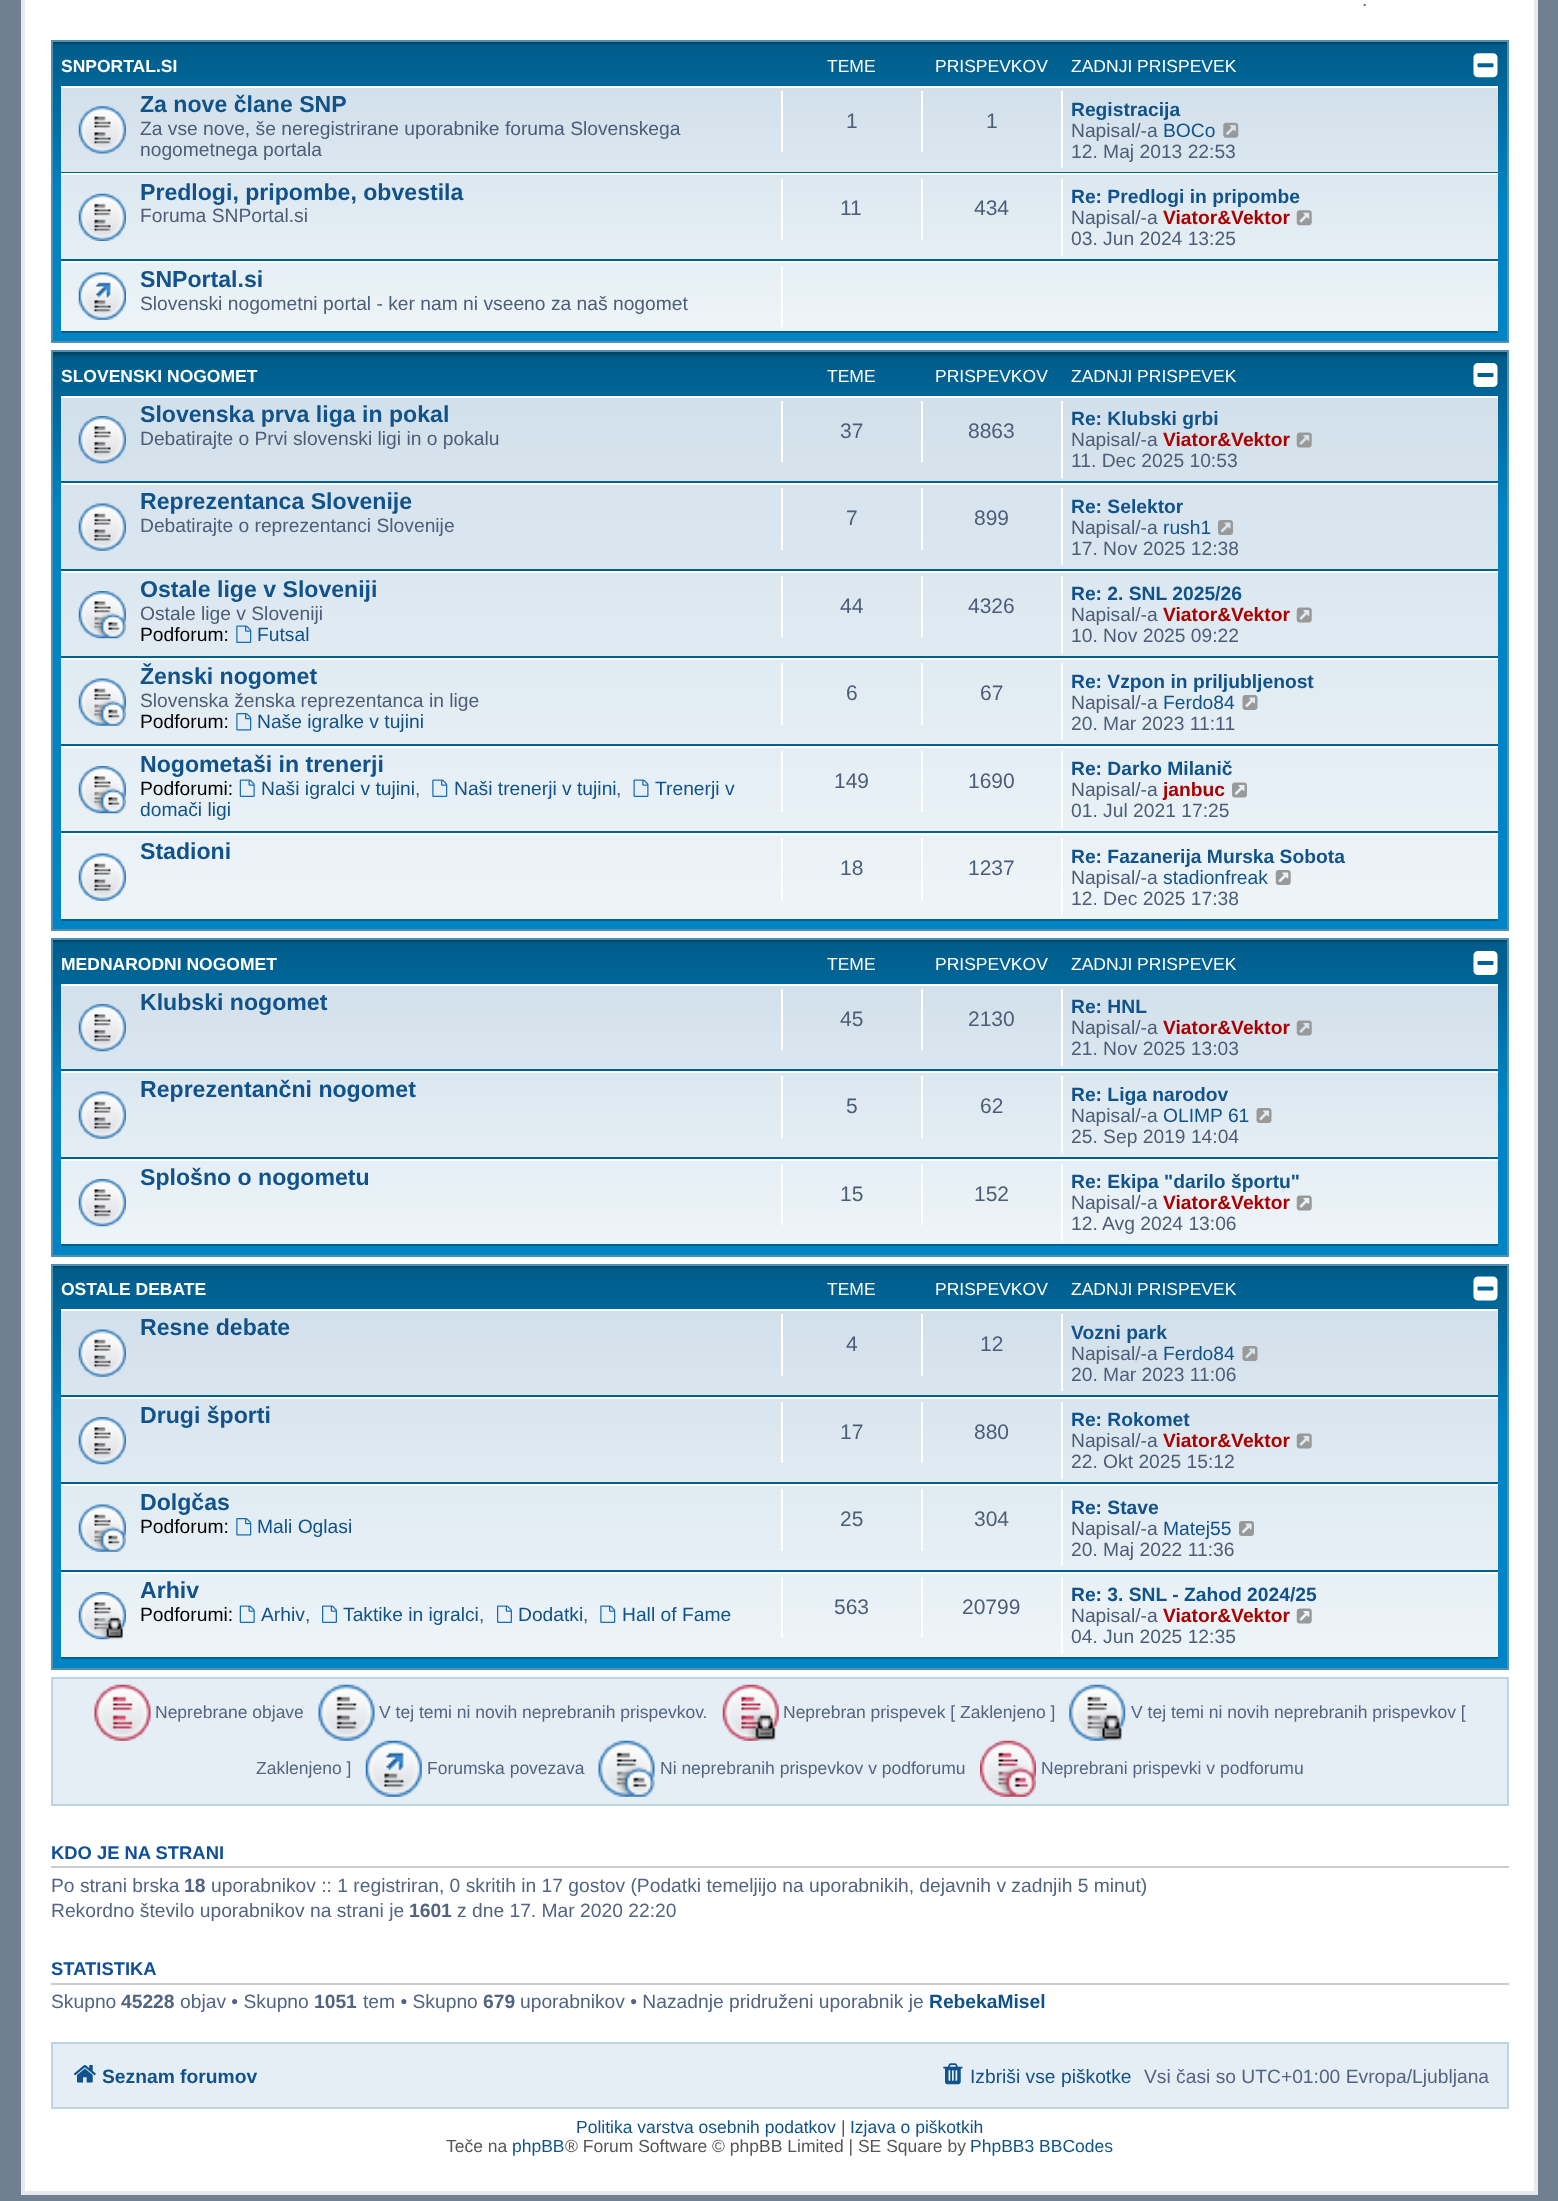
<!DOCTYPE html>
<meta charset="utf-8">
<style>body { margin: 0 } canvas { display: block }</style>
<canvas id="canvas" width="1558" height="2201"></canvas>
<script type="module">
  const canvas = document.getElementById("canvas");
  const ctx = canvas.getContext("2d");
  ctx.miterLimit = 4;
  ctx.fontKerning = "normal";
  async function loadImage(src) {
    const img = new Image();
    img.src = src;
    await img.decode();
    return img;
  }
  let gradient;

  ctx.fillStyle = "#708090";
  ctx.fillRect(0, 0, 1558, 2201);
  ctx.fillStyle = "#ffffff";
  ctx.beginPath();
  ctx.rect(23, -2, 1513, 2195);
  ctx.fill();
  ctx.strokeStyle = "#e6e9ed";
  ctx.lineWidth = 4;
  ctx.stroke();
  ctx.font = "19.25px Liberation Sans";
  ctx.fillStyle = "#536482";
  ctx.fillText(".", 1362, 6);
  gradient = ctx.createLinearGradient(780, 42, 780, 341);
  gradient.addColorStop(0, "#003f5e");
  gradient.addColorStop(0.01, "#005c8a");
  gradient.addColorStop(0.54, "#0084c4");
  gradient.addColorStop(1, "#0084c4");
  ctx.fillStyle = gradient;
  ctx.fillRect(53, 42, 1454, 299);
  ctx.strokeStyle = "#4f91b6";
  ctx.lineWidth = 2;
  ctx.strokeRect(52, 41, 1456, 301);
  ctx.font = "bold 17.5px Liberation Sans";
  ctx.fillStyle = "#ffffff";
  ctx.fillText("SNPORTAL.SI", 61, 72);
  ctx.font = "17.5px Liberation Sans";
  ctx.fillText("TEME", 827, 72);
  ctx.fillText("PRISPEVKOV", 935, 72);
  ctx.fillText("ZADNJI PRISPEVEK", 1071, 72);
  ctx.drawImage(await loadImage("img1.png"), 1473, 53, 25, 25);
  gradient = ctx.createLinearGradient(780, 86, 780, 333);
  gradient.addColorStop(0, "#d2e0eb");
  gradient.addColorStop(1, "#eef5f9");
  ctx.fillStyle = gradient;
  ctx.fillRect(61, 88, 1437, 243);
  ctx.fillStyle = "#ffffff";
  ctx.fillRect(61, 86, 1437, 2);
  ctx.fillStyle = "#00608f";
  ctx.fillRect(61, 172, 1437, 1);
  ctx.drawImage(await loadImage("img2.png"), 78, 106, 48, 48);
  ctx.font = "bold 23.1px Liberation Sans";
  ctx.fillStyle = "#105289";
  ctx.fillText("Za nove člane SNP", 140, 112);
  ctx.font = "19.25px Liberation Sans";
  ctx.fillStyle = "#4c5d77";
  ctx.fillText("Za vse nove, še neregistrirane uporabnike foruma Slovenskega", 140, 135);
  ctx.fillText("nogometnega portala", 140, 156);
  ctx.fillStyle = "#ffffff";
  ctx.fillRect(781, 91, 2, 61);
  ctx.font = "21px Liberation Sans";
  ctx.fillStyle = "#4c5d77";
  ctx.fillText("1", 846, 128);
  ctx.fillStyle = "#ffffff";
  ctx.fillRect(921, 91, 2, 61);
  ctx.fillStyle = "#4c5d77";
  ctx.fillText("1", 986, 128);
  ctx.fillStyle = "#ffffff";
  ctx.fillRect(1061, 91, 2, 77);
  ctx.font = "bold 19.25px Liberation Sans";
  ctx.fillStyle = "#105289";
  ctx.fillText("Registracija", 1071, 116);
  ctx.font = "19.25px Liberation Sans";
  ctx.fillStyle = "#4c5d77";
  ctx.fillText("Napisal/-a", 1071, 137);
  ctx.fillStyle = "#105289";
  ctx.fillText("BOCo", 1163, 137);
  ctx.drawImage(await loadImage("img3.png"), 1223, 122, 16, 16);
  ctx.fillStyle = "#4c5d77";
  ctx.fillText("12. Maj 2013 22:53", 1071, 158);
  ctx.fillStyle = "#ffffff";
  ctx.fillRect(61, 173, 1437, 2);
  ctx.fillStyle = "#00608f";
  ctx.fillRect(61, 259, 1437, 2);
  ctx.drawImage(await loadImage("img4.png"), 78, 193, 48, 48);
  ctx.font = "bold 23.1px Liberation Sans";
  ctx.fillStyle = "#105289";
  ctx.fillText("Predlogi, pripombe, obvestila", 140, 200);
  ctx.font = "19.25px Liberation Sans";
  ctx.fillStyle = "#4c5d77";
  ctx.fillText("Foruma SNPortal.si", 140, 222);
  ctx.fillStyle = "#ffffff";
  ctx.fillRect(781, 179, 2, 61);
  ctx.font = "21px Liberation Sans";
  ctx.fillStyle = "#4c5d77";
  ctx.fillText("11", 840, 215);
  ctx.fillStyle = "#ffffff";
  ctx.fillRect(921, 179, 2, 61);
  ctx.fillStyle = "#4c5d77";
  ctx.fillText("434", 974, 215);
  ctx.fillStyle = "#ffffff";
  ctx.fillRect(1061, 179, 2, 77);
  ctx.font = "bold 19.25px Liberation Sans";
  ctx.fillStyle = "#105289";
  ctx.fillText("Re: Predlogi in pripombe", 1071, 203);
  ctx.font = "19.25px Liberation Sans";
  ctx.fillStyle = "#4c5d77";
  ctx.fillText("Napisal/-a", 1071, 224);
  ctx.font = "bold 19.25px Liberation Sans";
  ctx.fillStyle = "#aa0000";
  ctx.fillText("Viator&Vektor", 1163, 224);
  ctx.drawImage(await loadImage("img5.png"), 1296, 210, 16, 16);
  ctx.font = "19.25px Liberation Sans";
  ctx.fillStyle = "#4c5d77";
  ctx.fillText("03. Jun 2024 13:25", 1071, 245);
  ctx.fillStyle = "#ffffff";
  ctx.fillRect(61, 261, 1437, 2);
  ctx.fillStyle = "#00608f";
  ctx.fillRect(61, 331, 1437, 2);
  ctx.drawImage(await loadImage("img6.png"), 78, 272, 48, 48);
  ctx.font = "bold 23.1px Liberation Sans";
  ctx.fillStyle = "#105289";
  ctx.fillText("SNPortal.si", 140, 287);
  ctx.font = "19.25px Liberation Sans";
  ctx.fillStyle = "#4c5d77";
  ctx.fillText("Slovenski nogometni portal - ker nam ni vseeno za naš nogomet", 140, 310);
  ctx.fillStyle = "#ffffff";
  ctx.fillRect(781, 266, 2, 61);
  gradient = ctx.createLinearGradient(780, 352, 780, 929);
  gradient.addColorStop(0, "#003f5e");
  gradient.addColorStop(0.01, "#005c8a");
  gradient.addColorStop(0.28, "#0084c4");
  gradient.addColorStop(1, "#0084c4");
  ctx.fillStyle = gradient;
  ctx.fillRect(53, 352, 1454, 577);
  ctx.strokeRect(52, 351, 1456, 579);
  ctx.font = "bold 17.5px Liberation Sans";
  ctx.fillStyle = "#ffffff";
  ctx.fillText("SLOVENSKI NOGOMET", 61, 382);
  ctx.font = "17.5px Liberation Sans";
  ctx.fillText("TEME", 827, 382);
  ctx.fillText("PRISPEVKOV", 935, 382);
  ctx.fillText("ZADNJI PRISPEVEK", 1071, 382);
  ctx.drawImage(await loadImage("img7.png"), 1473, 363, 25, 24);
  gradient = ctx.createLinearGradient(780, 395, 780, 921);
  gradient.addColorStop(0, "#d2e0eb");
  gradient.addColorStop(1, "#eef5f9");
  ctx.fillStyle = gradient;
  ctx.fillRect(61, 398, 1437, 521);
  ctx.fillStyle = "#ffffff";
  ctx.fillRect(61, 396, 1437, 2);
  ctx.fillStyle = "#00608f";
  ctx.fillRect(61, 481, 1437, 2);
  ctx.drawImage(await loadImage("img8.png"), 78, 416, 48, 48);
  ctx.font = "bold 23.1px Liberation Sans";
  ctx.fillStyle = "#105289";
  ctx.fillText("Slovenska prva liga in pokal", 140, 422);
  ctx.font = "19.25px Liberation Sans";
  ctx.fillStyle = "#4c5d77";
  ctx.fillText("Debatirajte o Prvi slovenski ligi in o pokalu", 140, 445);
  ctx.fillStyle = "#ffffff";
  ctx.fillRect(781, 401, 2, 61);
  ctx.font = "21px Liberation Sans";
  ctx.fillStyle = "#4c5d77";
  ctx.fillText("37", 840, 438);
  ctx.fillStyle = "#ffffff";
  ctx.fillRect(921, 401, 2, 61);
  ctx.fillStyle = "#4c5d77";
  ctx.fillText("8863", 968, 438);
  ctx.fillStyle = "#ffffff";
  ctx.fillRect(1061, 401, 2, 77);
  ctx.font = "bold 19.25px Liberation Sans";
  ctx.fillStyle = "#105289";
  ctx.fillText("Re: Klubski grbi", 1071, 425);
  ctx.font = "19.25px Liberation Sans";
  ctx.fillStyle = "#4c5d77";
  ctx.fillText("Napisal/-a", 1071, 446);
  ctx.font = "bold 19.25px Liberation Sans";
  ctx.fillStyle = "#aa0000";
  ctx.fillText("Viator&Vektor", 1163, 446);
  ctx.drawImage(await loadImage("img9.png"), 1296, 432, 16, 16);
  ctx.font = "19.25px Liberation Sans";
  ctx.fillStyle = "#4c5d77";
  ctx.fillText("11. Dec 2025 10:53", 1071, 467);
  ctx.fillStyle = "#ffffff";
  ctx.fillRect(61, 483, 1437, 2);
  ctx.fillStyle = "#00608f";
  ctx.fillRect(61, 569, 1437, 2);
  ctx.drawImage(await loadImage("img10.png"), 78, 503, 48, 48);
  ctx.font = "bold 23.1px Liberation Sans";
  ctx.fillStyle = "#105289";
  ctx.fillText("Reprezentanca Slovenije", 140, 509);
  ctx.font = "19.25px Liberation Sans";
  ctx.fillStyle = "#4c5d77";
  ctx.fillText("Debatirajte o reprezentanci Slovenije", 140, 532);
  ctx.fillStyle = "#ffffff";
  ctx.fillRect(781, 488, 2, 62);
  ctx.font = "21px Liberation Sans";
  ctx.fillStyle = "#4c5d77";
  ctx.fillText("7", 846, 525);
  ctx.fillStyle = "#ffffff";
  ctx.fillRect(921, 488, 2, 62);
  ctx.fillStyle = "#4c5d77";
  ctx.fillText("899", 974, 525);
  ctx.fillStyle = "#ffffff";
  ctx.fillRect(1061, 488, 2, 77);
  ctx.font = "bold 19.25px Liberation Sans";
  ctx.fillStyle = "#105289";
  ctx.fillText("Re: Selektor", 1071, 513);
  ctx.font = "19.25px Liberation Sans";
  ctx.fillStyle = "#4c5d77";
  ctx.fillText("Napisal/-a", 1071, 534);
  ctx.fillStyle = "#105289";
  ctx.fillText("rush1", 1163, 534);
  ctx.drawImage(await loadImage("img11.png"), 1218, 520, 15, 15);
  ctx.fillStyle = "#4c5d77";
  ctx.fillText("17. Nov 2025 12:38", 1071, 555);
  ctx.fillStyle = "#ffffff";
  ctx.fillRect(61, 571, 1437, 2);
  ctx.fillStyle = "#00608f";
  ctx.fillRect(61, 656, 1437, 2);
  ctx.drawImage(await loadImage("img12.png"), 78, 591, 48, 48);
  ctx.font = "bold 23.1px Liberation Sans";
  ctx.fillStyle = "#105289";
  ctx.fillText("Ostale lige v Sloveniji", 140, 597);
  ctx.font = "19.25px Liberation Sans";
  ctx.fillStyle = "#4c5d77";
  ctx.fillText("Ostale lige v Sloveniji", 140, 620);
  ctx.fillStyle = "#000000";
  ctx.fillText("Podforum:", 140, 641);
  ctx.drawImage(await loadImage("img13.png"), 236, 625, 16, 18);
  ctx.fillStyle = "#105289";
  ctx.fillText("Futsal", 257, 641);
  ctx.fillStyle = "#ffffff";
  ctx.fillRect(781, 576, 2, 61);
  ctx.font = "21px Liberation Sans";
  ctx.fillStyle = "#4c5d77";
  ctx.fillText("44", 840, 613);
  ctx.fillStyle = "#ffffff";
  ctx.fillRect(921, 576, 2, 61);
  ctx.fillStyle = "#4c5d77";
  ctx.fillText("4326", 968, 613);
  ctx.fillStyle = "#ffffff";
  ctx.fillRect(1061, 576, 2, 77);
  ctx.font = "bold 19.25px Liberation Sans";
  ctx.fillStyle = "#105289";
  ctx.fillText("Re: 2. SNL 2025/26", 1071, 600);
  ctx.font = "19.25px Liberation Sans";
  ctx.fillStyle = "#4c5d77";
  ctx.fillText("Napisal/-a", 1071, 621);
  ctx.font = "bold 19.25px Liberation Sans";
  ctx.fillStyle = "#aa0000";
  ctx.fillText("Viator&Vektor", 1163, 621);
  ctx.drawImage(await loadImage("img14.png"), 1296, 607, 16, 16);
  ctx.font = "19.25px Liberation Sans";
  ctx.fillStyle = "#4c5d77";
  ctx.fillText("10. Nov 2025 09:22", 1071, 642);
  ctx.fillStyle = "#ffffff";
  ctx.fillRect(61, 658, 1437, 2);
  ctx.fillStyle = "#00608f";
  ctx.fillRect(61, 744, 1437, 2);
  ctx.drawImage(await loadImage("img15.png"), 78, 678, 48, 48);
  ctx.font = "bold 23.1px Liberation Sans";
  ctx.fillStyle = "#105289";
  ctx.fillText("Ženski nogomet", 140, 684);
  ctx.font = "19.25px Liberation Sans";
  ctx.fillStyle = "#4c5d77";
  ctx.fillText("Slovenska ženska reprezentanca in lige", 140, 707);
  ctx.fillStyle = "#000000";
  ctx.fillText("Podforum:", 140, 728);
  ctx.drawImage(await loadImage("img16.png"), 236, 713, 16, 18);
  ctx.fillStyle = "#105289";
  ctx.fillText("Naše igralke v tujini", 257, 728);
  ctx.fillStyle = "#ffffff";
  ctx.fillRect(781, 663, 2, 62);
  ctx.font = "21px Liberation Sans";
  ctx.fillStyle = "#4c5d77";
  ctx.fillText("6", 846, 700);
  ctx.fillStyle = "#ffffff";
  ctx.fillRect(921, 663, 2, 62);
  ctx.fillStyle = "#4c5d77";
  ctx.fillText("67", 980, 700);
  ctx.fillStyle = "#ffffff";
  ctx.fillRect(1061, 663, 2, 77);
  ctx.font = "bold 19.25px Liberation Sans";
  ctx.fillStyle = "#105289";
  ctx.fillText("Re: Vzpon in priljubljenost", 1071, 688);
  ctx.font = "19.25px Liberation Sans";
  ctx.fillStyle = "#4c5d77";
  ctx.fillText("Napisal/-a", 1071, 709);
  ctx.fillStyle = "#105289";
  ctx.fillText("Ferdo84", 1163, 709);
  ctx.drawImage(await loadImage("img17.png"), 1242, 695, 16, 15);
  ctx.fillStyle = "#4c5d77";
  ctx.fillText("20. Mar 2023 11:11", 1071, 730);
  ctx.fillStyle = "#ffffff";
  ctx.fillRect(61, 746, 1437, 2);
  ctx.fillStyle = "#00608f";
  ctx.fillRect(61, 831, 1437, 2);
  ctx.drawImage(await loadImage("img18.png"), 78, 766, 48, 48);
  ctx.font = "bold 23.1px Liberation Sans";
  ctx.fillStyle = "#105289";
  ctx.fillText("Nogometaši in trenerji", 140, 772);
  ctx.drawImage(await loadImage("img19.png"), 633, 779, 16, 18);
  ctx.font = "19.25px Liberation Sans";
  ctx.fillText("Trenerji v", 655, 795);
  ctx.fillText("domači ligi", 140, 816);
  ctx.fillStyle = "#000000";
  ctx.fillText("Podforumi:", 140, 795);
  ctx.drawImage(await loadImage("img20.png"), 239, 779, 16, 18);
  ctx.fillStyle = "#105289";
  ctx.fillText("Naši igralci v tujini", 261, 795);
  ctx.fillStyle = "#4c5d77";
  ctx.fillText(",", 415, 795);
  ctx.drawImage(await loadImage("img21.png"), 432, 779, 16, 18);
  ctx.fillStyle = "#105289";
  ctx.fillText("Naši trenerji v tujini", 454, 795);
  ctx.fillStyle = "#4c5d77";
  ctx.fillText(",", 616, 795);
  ctx.fillStyle = "#ffffff";
  ctx.fillRect(781, 751, 2, 61);
  ctx.font = "21px Liberation Sans";
  ctx.fillStyle = "#4c5d77";
  ctx.fillText("149", 834, 788);
  ctx.fillStyle = "#ffffff";
  ctx.fillRect(921, 751, 2, 61);
  ctx.fillStyle = "#4c5d77";
  ctx.fillText("1690", 968, 788);
  ctx.fillStyle = "#ffffff";
  ctx.fillRect(1061, 751, 2, 77);
  ctx.font = "bold 19.25px Liberation Sans";
  ctx.fillStyle = "#105289";
  ctx.fillText("Re: Darko Milanič", 1071, 775);
  ctx.font = "19.25px Liberation Sans";
  ctx.fillStyle = "#4c5d77";
  ctx.fillText("Napisal/-a", 1071, 796);
  ctx.font = "bold 19.25px Liberation Sans";
  ctx.fillStyle = "#aa0000";
  ctx.fillText("janbuc", 1163, 796);
  ctx.drawImage(await loadImage("img22.png"), 1232, 782, 15, 16);
  ctx.font = "19.25px Liberation Sans";
  ctx.fillStyle = "#4c5d77";
  ctx.fillText("01. Jul 2021 17:25", 1071, 817);
  ctx.fillStyle = "#ffffff";
  ctx.fillRect(61, 833, 1437, 2);
  ctx.fillStyle = "#00608f";
  ctx.fillRect(61, 919, 1437, 2);
  ctx.drawImage(await loadImage("img23.png"), 78, 853, 48, 48);
  ctx.font = "bold 23.1px Liberation Sans";
  ctx.fillStyle = "#105289";
  ctx.fillText("Stadioni", 140, 859);
  ctx.fillStyle = "#ffffff";
  ctx.fillRect(781, 838, 2, 62);
  ctx.font = "21px Liberation Sans";
  ctx.fillStyle = "#4c5d77";
  ctx.fillText("18", 840, 875);
  ctx.fillStyle = "#ffffff";
  ctx.fillRect(921, 838, 2, 62);
  ctx.fillStyle = "#4c5d77";
  ctx.fillText("1237", 968, 875);
  ctx.fillStyle = "#ffffff";
  ctx.fillRect(1061, 838, 2, 77);
  ctx.font = "bold 19.25px Liberation Sans";
  ctx.fillStyle = "#105289";
  ctx.fillText("Re: Fazanerija Murska Sobota", 1071, 863);
  ctx.font = "19.25px Liberation Sans";
  ctx.fillStyle = "#4c5d77";
  ctx.fillText("Napisal/-a", 1071, 884);
  ctx.fillStyle = "#105289";
  ctx.fillText("stadionfreak", 1163, 884);
  ctx.drawImage(await loadImage("img24.png"), 1275, 870, 16, 15);
  ctx.fillStyle = "#4c5d77";
  ctx.fillText("12. Dec 2025 17:38", 1071, 905);
  gradient = ctx.createLinearGradient(780, 940, 780, 1255);
  gradient.addColorStop(0, "#003f5e");
  gradient.addColorStop(0.01, "#005c8a");
  gradient.addColorStop(0.51, "#0084c4");
  gradient.addColorStop(1, "#0084c4");
  ctx.fillStyle = gradient;
  ctx.fillRect(53, 940, 1454, 315);
  ctx.strokeRect(52, 939, 1456, 317);
  ctx.font = "bold 17.5px Liberation Sans";
  ctx.fillStyle = "#ffffff";
  ctx.fillText("MEDNARODNI NOGOMET", 61, 970);
  ctx.font = "17.5px Liberation Sans";
  ctx.fillText("TEME", 827, 970);
  ctx.fillText("PRISPEVKOV", 935, 970);
  ctx.fillText("ZADNJI PRISPEVEK", 1071, 970);
  ctx.drawImage(await loadImage("img25.png"), 1473, 951, 25, 24);
  gradient = ctx.createLinearGradient(780, 984, 780, 1246);
  gradient.addColorStop(0, "#d2e0eb");
  gradient.addColorStop(1, "#eef5f9");
  ctx.fillStyle = gradient;
  ctx.fillRect(61, 986, 1437, 258);
  ctx.fillStyle = "#ffffff";
  ctx.fillRect(61, 984, 1437, 2);
  ctx.fillStyle = "#00608f";
  ctx.fillRect(61, 1069, 1437, 2);
  ctx.drawImage(await loadImage("img26.png"), 78, 1004, 48, 48);
  ctx.font = "bold 23.1px Liberation Sans";
  ctx.fillStyle = "#105289";
  ctx.fillText("Klubski nogomet", 140, 1010);
  ctx.fillStyle = "#ffffff";
  ctx.fillRect(781, 989, 2, 61);
  ctx.font = "21px Liberation Sans";
  ctx.fillStyle = "#4c5d77";
  ctx.fillText("45", 840, 1026);
  ctx.fillStyle = "#ffffff";
  ctx.fillRect(921, 989, 2, 61);
  ctx.fillStyle = "#4c5d77";
  ctx.fillText("2130", 968, 1026);
  ctx.fillStyle = "#ffffff";
  ctx.fillRect(1061, 989, 2, 77);
  ctx.font = "bold 19.25px Liberation Sans";
  ctx.fillStyle = "#105289";
  ctx.fillText("Re: HNL", 1071, 1013);
  ctx.font = "19.25px Liberation Sans";
  ctx.fillStyle = "#4c5d77";
  ctx.fillText("Napisal/-a", 1071, 1034);
  ctx.font = "bold 19.25px Liberation Sans";
  ctx.fillStyle = "#aa0000";
  ctx.fillText("Viator&Vektor", 1163, 1034);
  ctx.drawImage(await loadImage("img27.png"), 1296, 1020, 16, 16);
  ctx.font = "19.25px Liberation Sans";
  ctx.fillStyle = "#4c5d77";
  ctx.fillText("21. Nov 2025 13:03", 1071, 1055);
  ctx.fillStyle = "#ffffff";
  ctx.fillRect(61, 1071, 1437, 2);
  ctx.fillStyle = "#00608f";
  ctx.fillRect(61, 1157, 1437, 2);
  ctx.drawImage(await loadImage("img28.png"), 78, 1091, 48, 48);
  ctx.font = "bold 23.1px Liberation Sans";
  ctx.fillStyle = "#105289";
  ctx.fillText("Reprezentančni nogomet", 140, 1097);
  ctx.fillStyle = "#ffffff";
  ctx.fillRect(781, 1076, 2, 62);
  ctx.font = "21px Liberation Sans";
  ctx.fillStyle = "#4c5d77";
  ctx.fillText("5", 846, 1113);
  ctx.fillStyle = "#ffffff";
  ctx.fillRect(921, 1076, 2, 62);
  ctx.fillStyle = "#4c5d77";
  ctx.fillText("62", 980, 1113);
  ctx.fillStyle = "#ffffff";
  ctx.fillRect(1061, 1076, 2, 77);
  ctx.font = "bold 19.25px Liberation Sans";
  ctx.fillStyle = "#105289";
  ctx.fillText("Re: Liga narodov", 1071, 1101);
  ctx.font = "19.25px Liberation Sans";
  ctx.fillStyle = "#4c5d77";
  ctx.fillText("Napisal/-a", 1071, 1122);
  ctx.fillStyle = "#105289";
  ctx.fillText("OLIMP 61", 1163, 1122);
  ctx.drawImage(await loadImage("img29.png"), 1256, 1108, 16, 15);
  ctx.fillStyle = "#4c5d77";
  ctx.fillText("25. Sep 2019 14:04", 1071, 1143);
  ctx.fillStyle = "#ffffff";
  ctx.fillRect(61, 1159, 1437, 2);
  ctx.fillStyle = "#00608f";
  ctx.fillRect(61, 1244, 1437, 2);
  ctx.drawImage(await loadImage("img30.png"), 78, 1179, 48, 48);
  ctx.font = "bold 23.1px Liberation Sans";
  ctx.fillStyle = "#105289";
  ctx.fillText("Splošno o nogometu", 140, 1185);
  ctx.fillStyle = "#ffffff";
  ctx.fillRect(781, 1164, 2, 61);
  ctx.font = "21px Liberation Sans";
  ctx.fillStyle = "#4c5d77";
  ctx.fillText("15", 840, 1201);
  ctx.fillStyle = "#ffffff";
  ctx.fillRect(921, 1164, 2, 61);
  ctx.fillStyle = "#4c5d77";
  ctx.fillText("152", 974, 1201);
  ctx.fillStyle = "#ffffff";
  ctx.fillRect(1061, 1164, 2, 77);
  ctx.font = "bold 19.25px Liberation Sans";
  ctx.fillStyle = "#105289";
  ctx.fillText("Re: Ekipa \"darilo športu\"", 1071, 1188);
  ctx.font = "19.25px Liberation Sans";
  ctx.fillStyle = "#4c5d77";
  ctx.fillText("Napisal/-a", 1071, 1209);
  ctx.font = "bold 19.25px Liberation Sans";
  ctx.fillStyle = "#aa0000";
  ctx.fillText("Viator&Vektor", 1163, 1209);
  ctx.drawImage(await loadImage("img31.png"), 1296, 1195, 16, 16);
  ctx.font = "19.25px Liberation Sans";
  ctx.fillStyle = "#4c5d77";
  ctx.fillText("12. Avg 2024 13:06", 1071, 1230);
  gradient = ctx.createLinearGradient(780, 1265, 780, 1668);
  gradient.addColorStop(0, "#003f5e");
  gradient.addColorStop(0.01, "#005c8a");
  gradient.addColorStop(0.4, "#0084c4");
  gradient.addColorStop(1, "#0084c4");
  ctx.fillStyle = gradient;
  ctx.fillRect(53, 1266, 1454, 402);
  ctx.strokeRect(52, 1265, 1456, 404);
  ctx.font = "bold 17.5px Liberation Sans";
  ctx.fillStyle = "#ffffff";
  ctx.fillText("OSTALE DEBATE", 61, 1295);
  ctx.font = "17.5px Liberation Sans";
  ctx.fillText("TEME", 827, 1295);
  ctx.fillText("PRISPEVKOV", 935, 1295);
  ctx.fillText("ZADNJI PRISPEVEK", 1071, 1295);
  ctx.drawImage(await loadImage("img32.png"), 1473, 1276, 25, 25);
  gradient = ctx.createLinearGradient(780, 1309, 780, 1659);
  gradient.addColorStop(0, "#d2e0eb");
  gradient.addColorStop(1, "#eef5f9");
  ctx.fillStyle = gradient;
  ctx.fillRect(61, 1311, 1437, 346);
  ctx.fillStyle = "#ffffff";
  ctx.fillRect(61, 1309, 1437, 2);
  ctx.fillStyle = "#00608f";
  ctx.fillRect(61, 1395, 1437, 2);
  ctx.drawImage(await loadImage("img33.png"), 78, 1329, 48, 48);
  ctx.font = "bold 23.1px Liberation Sans";
  ctx.fillStyle = "#105289";
  ctx.fillText("Resne debate", 140, 1335);
  ctx.fillStyle = "#ffffff";
  ctx.fillRect(781, 1314, 2, 62);
  ctx.font = "21px Liberation Sans";
  ctx.fillStyle = "#4c5d77";
  ctx.fillText("4", 846, 1351);
  ctx.fillStyle = "#ffffff";
  ctx.fillRect(921, 1314, 2, 62);
  ctx.fillStyle = "#4c5d77";
  ctx.fillText("12", 980, 1351);
  ctx.fillStyle = "#ffffff";
  ctx.fillRect(1061, 1314, 2, 77);
  ctx.font = "bold 19.25px Liberation Sans";
  ctx.fillStyle = "#105289";
  ctx.fillText("Vozni park", 1071, 1339);
  ctx.font = "19.25px Liberation Sans";
  ctx.fillStyle = "#4c5d77";
  ctx.fillText("Napisal/-a", 1071, 1360);
  ctx.fillStyle = "#105289";
  ctx.fillText("Ferdo84", 1163, 1360);
  ctx.drawImage(await loadImage("img34.png"), 1242, 1346, 16, 15);
  ctx.fillStyle = "#4c5d77";
  ctx.fillText("20. Mar 2023 11:06", 1071, 1381);
  ctx.fillStyle = "#ffffff";
  ctx.fillRect(61, 1397, 1437, 2);
  ctx.fillStyle = "#00608f";
  ctx.fillRect(61, 1482, 1437, 2);
  ctx.drawImage(await loadImage("img35.png"), 78, 1417, 48, 48);
  ctx.font = "bold 23.1px Liberation Sans";
  ctx.fillStyle = "#105289";
  ctx.fillText("Drugi športi", 140, 1423);
  ctx.fillStyle = "#ffffff";
  ctx.fillRect(781, 1402, 2, 61);
  ctx.font = "21px Liberation Sans";
  ctx.fillStyle = "#4c5d77";
  ctx.fillText("17", 840, 1439);
  ctx.fillStyle = "#ffffff";
  ctx.fillRect(921, 1402, 2, 61);
  ctx.fillStyle = "#4c5d77";
  ctx.fillText("880", 974, 1439);
  ctx.fillStyle = "#ffffff";
  ctx.fillRect(1061, 1402, 2, 77);
  ctx.font = "bold 19.25px Liberation Sans";
  ctx.fillStyle = "#105289";
  ctx.fillText("Re: Rokomet", 1071, 1426);
  ctx.font = "19.25px Liberation Sans";
  ctx.fillStyle = "#4c5d77";
  ctx.fillText("Napisal/-a", 1071, 1447);
  ctx.font = "bold 19.25px Liberation Sans";
  ctx.fillStyle = "#aa0000";
  ctx.fillText("Viator&Vektor", 1163, 1447);
  ctx.drawImage(await loadImage("img36.png"), 1296, 1433, 16, 16);
  ctx.font = "19.25px Liberation Sans";
  ctx.fillStyle = "#4c5d77";
  ctx.fillText("22. Okt 2025 15:12", 1071, 1468);
  ctx.fillStyle = "#ffffff";
  ctx.fillRect(61, 1484, 1437, 2);
  ctx.fillStyle = "#00608f";
  ctx.fillRect(61, 1570, 1437, 2);
  ctx.drawImage(await loadImage("img37.png"), 78, 1504, 48, 48);
  ctx.font = "bold 23.1px Liberation Sans";
  ctx.fillStyle = "#105289";
  ctx.fillText("Dolgčas", 140, 1510);
  ctx.font = "19.25px Liberation Sans";
  ctx.fillStyle = "#000000";
  ctx.fillText("Podforum:", 140, 1533);
  ctx.drawImage(await loadImage("img38.png"), 236, 1518, 16, 18);
  ctx.fillStyle = "#105289";
  ctx.fillText("Mali Oglasi", 257, 1533);
  ctx.fillStyle = "#ffffff";
  ctx.fillRect(781, 1489, 2, 62);
  ctx.font = "21px Liberation Sans";
  ctx.fillStyle = "#4c5d77";
  ctx.fillText("25", 840, 1526);
  ctx.fillStyle = "#ffffff";
  ctx.fillRect(921, 1489, 2, 62);
  ctx.fillStyle = "#4c5d77";
  ctx.fillText("304", 974, 1526);
  ctx.fillStyle = "#ffffff";
  ctx.fillRect(1061, 1489, 2, 77);
  ctx.font = "bold 19.25px Liberation Sans";
  ctx.fillStyle = "#105289";
  ctx.fillText("Re: Stave", 1071, 1514);
  ctx.font = "19.25px Liberation Sans";
  ctx.fillStyle = "#4c5d77";
  ctx.fillText("Napisal/-a", 1071, 1535);
  ctx.fillStyle = "#105289";
  ctx.fillText("Matej55", 1163, 1535);
  ctx.drawImage(await loadImage("img39.png"), 1239, 1521, 15, 15);
  ctx.fillStyle = "#4c5d77";
  ctx.fillText("20. Maj 2022 11:36", 1071, 1556);
  ctx.fillStyle = "#ffffff";
  ctx.fillRect(61, 1572, 1437, 2);
  ctx.fillStyle = "#00608f";
  ctx.fillRect(61, 1657, 1437, 2);
  ctx.drawImage(await loadImage("img40.png"), 78, 1592, 48, 48);
  ctx.font = "bold 23.1px Liberation Sans";
  ctx.fillStyle = "#105289";
  ctx.fillText("Arhiv", 140, 1598);
  ctx.font = "19.25px Liberation Sans";
  ctx.fillStyle = "#000000";
  ctx.fillText("Podforumi:", 140, 1621);
  ctx.drawImage(await loadImage("img41.png"), 239, 1605, 16, 18);
  ctx.fillStyle = "#105289";
  ctx.fillText("Arhiv", 261, 1621);
  ctx.fillStyle = "#4c5d77";
  ctx.fillText(",", 305, 1621);
  ctx.drawImage(await loadImage("img42.png"), 322, 1605, 15, 18);
  ctx.fillStyle = "#105289";
  ctx.fillText("Taktike in igralci", 343, 1621);
  ctx.fillStyle = "#4c5d77";
  ctx.fillText(",", 479, 1621);
  ctx.drawImage(await loadImage("img42.png"), 497, 1605, 15, 18);
  ctx.fillStyle = "#105289";
  ctx.fillText("Dodatki", 518, 1621);
  ctx.fillStyle = "#4c5d77";
  ctx.fillText(",", 583, 1621);
  ctx.drawImage(await loadImage("img43.png"), 600, 1605, 16, 18);
  ctx.fillStyle = "#105289";
  ctx.fillText("Hall of Fame", 622, 1621);
  ctx.fillStyle = "#ffffff";
  ctx.fillRect(781, 1577, 2, 61);
  ctx.font = "21px Liberation Sans";
  ctx.fillStyle = "#4c5d77";
  ctx.fillText("563", 834, 1614);
  ctx.fillStyle = "#ffffff";
  ctx.fillRect(921, 1577, 2, 61);
  ctx.fillStyle = "#4c5d77";
  ctx.fillText("20799", 962, 1614);
  ctx.fillStyle = "#ffffff";
  ctx.fillRect(1061, 1577, 2, 77);
  ctx.font = "bold 19.25px Liberation Sans";
  ctx.fillStyle = "#105289";
  ctx.fillText("Re: 3. SNL - Zahod 2024/25", 1071, 1601);
  ctx.font = "19.25px Liberation Sans";
  ctx.fillStyle = "#4c5d77";
  ctx.fillText("Napisal/-a", 1071, 1622);
  ctx.font = "bold 19.25px Liberation Sans";
  ctx.fillStyle = "#aa0000";
  ctx.fillText("Viator&Vektor", 1163, 1622);
  ctx.drawImage(await loadImage("img44.png"), 1296, 1608, 16, 16);
  ctx.font = "19.25px Liberation Sans";
  ctx.fillStyle = "#4c5d77";
  ctx.fillText("04. Jun 2025 12:35", 1071, 1643);
  ctx.fillStyle = "#e5eef5";
  ctx.beginPath();
  ctx.rect(52, 1678, 1456, 127);
  ctx.fill();
  ctx.strokeStyle = "#bcd4e3";
  ctx.stroke();
  ctx.drawImage(await loadImage("img45.png"), 94, 1684, 57, 57);
  ctx.font = "17.5px Liberation Sans";
  ctx.fillStyle = "#536482";
  ctx.fillText("Neprebrane objave", 155, 1718);
  ctx.drawImage(await loadImage("img46.png"), 318, 1684, 57, 57);
  ctx.fillText("V tej temi ni novih neprebranih prispevkov.", 379, 1718);
  ctx.drawImage(await loadImage("img47.png"), 722, 1684, 57, 57);
  ctx.fillText("Neprebran prispevek [ Zaklenjeno ]", 783, 1718);
  ctx.drawImage(await loadImage("img48.png"), 1069, 1684, 57, 57);
  ctx.fillText("V tej temi ni novih neprebranih prispevkov [", 1131, 1718);
  ctx.fillText("Zaklenjeno ]", 256, 1774);
  ctx.drawImage(await loadImage("img49.png"), 365, 1740, 57, 57);
  ctx.fillText("Forumska povezava", 427, 1774);
  ctx.drawImage(await loadImage("img50.png"), 598, 1740, 57, 57);
  ctx.fillText("Ni neprebranih prispevkov v podforumu", 660, 1774);
  ctx.drawImage(await loadImage("img51.png"), 980, 1740, 56, 57);
  ctx.fillText("Neprebrani prispevki v podforumu", 1041, 1774);
  ctx.fillStyle = "#cccccc";
  ctx.fillRect(51, 1866, 1458, 2);
  ctx.font = "bold 18.4px Liberation Sans";
  ctx.fillStyle = "#115098";
  ctx.fillText("KDO JE NA STRANI", 51, 1859);
  ctx.font = "19.25px Liberation Sans";
  ctx.fillStyle = "#536482";
  ctx.fillText("Po strani brska", 51, 1892);
  ctx.font = "bold 19.25px Liberation Sans";
  ctx.fillText("18", 184, 1892);
  ctx.font = "19.25px Liberation Sans";
  ctx.fillText("uporabnikov :: 1 registriran, 0 skritih in 17 gostov (Podatki temeljijo na uporabnikih, dejavnih v zadnjih 5 minut)", 211, 1892);
  ctx.fillText("Rekordno število uporabnikov na strani je", 51, 1917);
  ctx.font = "bold 19.25px Liberation Sans";
  ctx.fillText("1601", 409, 1917);
  ctx.font = "19.25px Liberation Sans";
  ctx.fillText("z dne 17. Mar 2020 22:20", 457, 1917);
  ctx.fillStyle = "#cccccc";
  ctx.fillRect(51, 1983, 1458, 2);
  ctx.font = "bold 18.4px Liberation Sans";
  ctx.fillStyle = "#115098";
  ctx.fillText("STATISTIKA", 51, 1975);
  ctx.font = "19.25px Liberation Sans";
  ctx.fillStyle = "#536482";
  ctx.fillText("Skupno", 51, 2008);
  ctx.font = "bold 19.25px Liberation Sans";
  ctx.fillText("45228", 121, 2008);
  ctx.font = "19.25px Liberation Sans";
  ctx.fillText("objav • Skupno", 180, 2008);
  ctx.font = "bold 19.25px Liberation Sans";
  ctx.fillText("1051", 314, 2008);
  ctx.font = "19.25px Liberation Sans";
  ctx.fillText("tem • Skupno", 363, 2008);
  ctx.font = "bold 19.25px Liberation Sans";
  ctx.fillText("679", 483, 2008);
  ctx.font = "19.25px Liberation Sans";
  ctx.fillText("uporabnikov • Nazadnje pridruženi uporabnik je", 520, 2008);
  ctx.font = "bold 19.25px Liberation Sans";
  ctx.fillStyle = "#105289";
  ctx.fillText("RebekaMisel", 929, 2008);
  ctx.fillStyle = "#e5eef5";
  ctx.beginPath();
  ctx.rect(52, 2043, 1456, 65);
  ctx.fill();
  ctx.stroke();
  ctx.drawImage(await loadImage("img52.png"), 73, 2065, 23, 18);
  ctx.fillStyle = "#105289";
  ctx.fillText("Seznam forumov", 102, 2083);
  ctx.drawImage(await loadImage("img53.png"), 943, 2063, 20, 22);
  ctx.font = "19.25px Liberation Sans";
  ctx.fillText("Izbriši vse piškotke", 970, 2083);
  ctx.fillStyle = "#536482";
  ctx.fillText("Vsi časi so UTC+01:00 Evropa/Ljubljana", 1144, 2083);
  ctx.font = "17.5px Liberation Sans";
  ctx.fillStyle = "#105289";
  ctx.fillText("Politika varstva osebnih podatkov", 576, 2133);
  ctx.fillStyle = "#555555";
  ctx.fillText("|", 841, 2133);
  ctx.fillStyle = "#105289";
  ctx.fillText("Izjava o piškotkih", 850, 2133);
  ctx.fillStyle = "#555555";
  ctx.fillText("Teče na", 446, 2152);
  ctx.fillStyle = "#105289";
  ctx.fillText("phpBB", 512, 2152);
  ctx.fillStyle = "#555555";
  ctx.fillText("® Forum Software © phpBB Limited | SE Square by", 565, 2152);
  ctx.fillStyle = "#105289";
  ctx.fillText("PhpBB3 BBCodes", 970, 2152);
</script>
